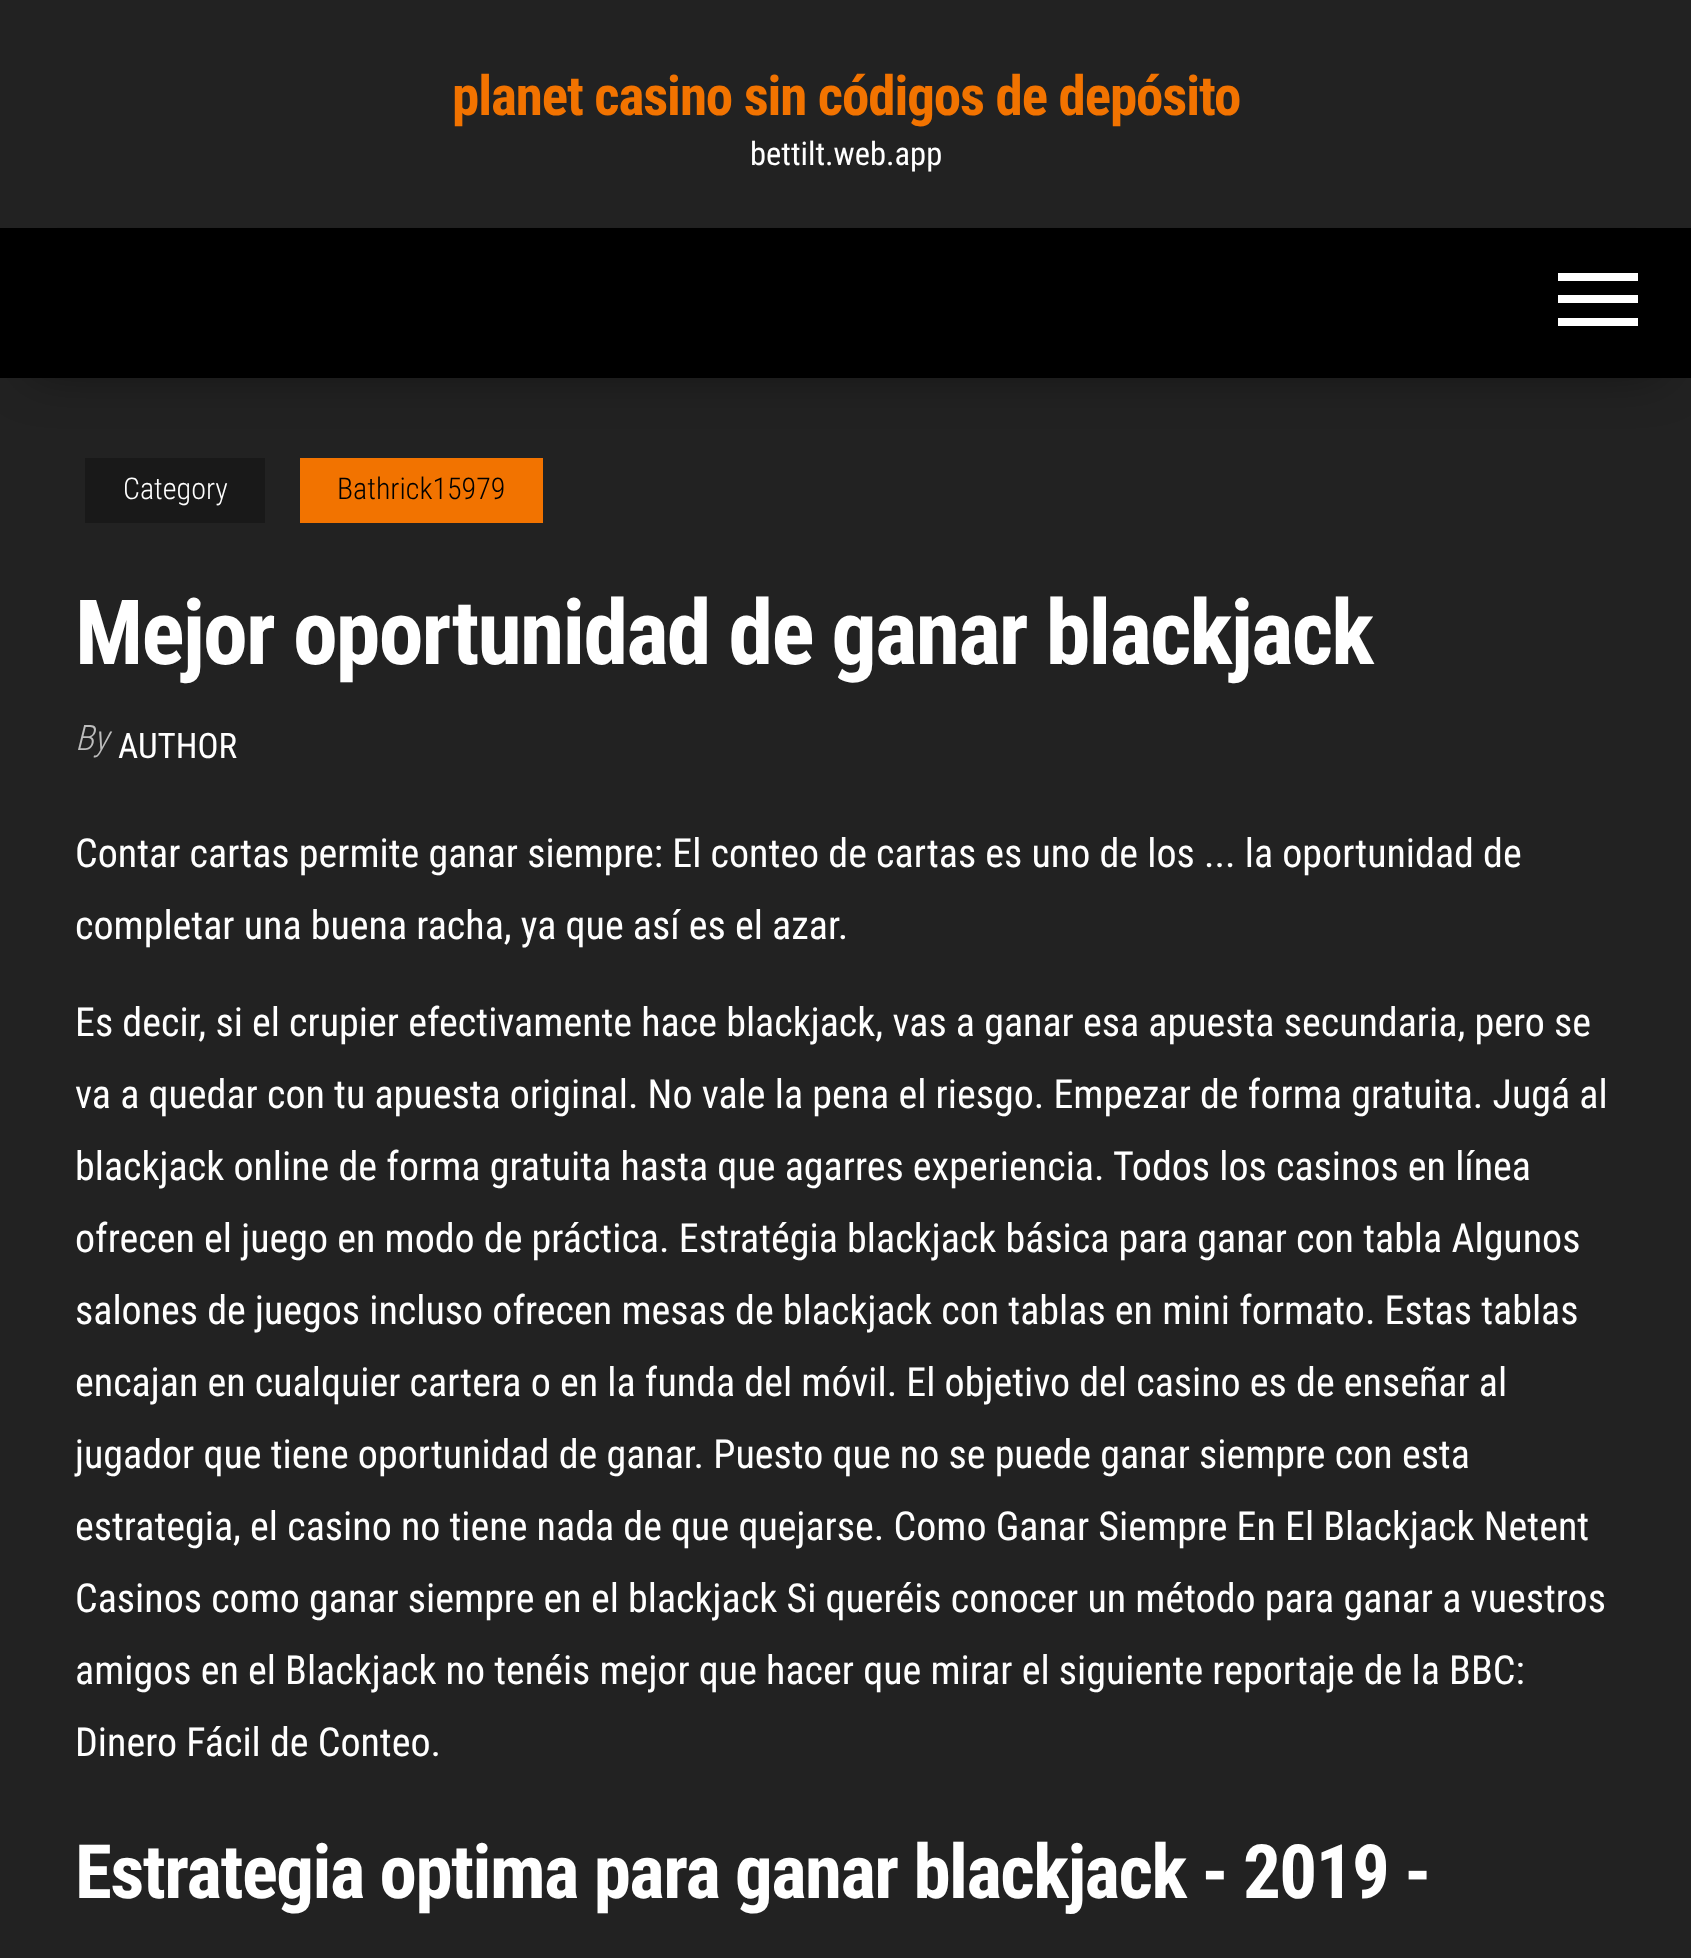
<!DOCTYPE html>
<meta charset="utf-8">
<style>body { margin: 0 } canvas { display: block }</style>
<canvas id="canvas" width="1691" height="1958"></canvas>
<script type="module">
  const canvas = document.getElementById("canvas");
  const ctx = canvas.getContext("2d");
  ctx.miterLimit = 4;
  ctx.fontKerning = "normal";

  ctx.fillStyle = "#222222";
  ctx.fillRect(0, 0, 1691, 1958);
  ctx.letterSpacing = "-1.1px";
  ctx.font = "bold 55px Roboto Condensed";
  ctx.fillStyle = "#f27300";
  ctx.fillText("planet casino sin códigos de depósito", 452, 115);
  ctx.letterSpacing = "0px";
  ctx.font = "32.5px Roboto Condensed";
  ctx.fillStyle = "#ffffff";
  ctx.fillText("bettilt.web.app", 750, 165);
  ctx.fillStyle = "rgba(0, 0, 0, 0.42)";
  ctx.filter = "blur(25px)";
  ctx.beginPath();
  ctx.rect(30, 283, 1633, 90);
  ctx.fill();
  ctx.filter = "none";
  ctx.fillStyle = "#000000";
  ctx.fillRect(0, 228, 1691, 150);
  ctx.fillStyle = "#ffffff";
  ctx.fillRect(1558, 273, 80, 8);
  ctx.fillRect(1558, 295, 80, 8);
  ctx.fillRect(1558, 318, 80, 8);
  ctx.fillStyle = "#191919";
  ctx.fillRect(85, 458, 180, 65);
  ctx.font = "300 30px Roboto Condensed";
  ctx.fillStyle = "#ffffff";
  ctx.fillText("Category", 123, 499);
  ctx.fillStyle = "#f27300";
  ctx.fillRect(300, 458, 243, 65);
  ctx.fillStyle = "#000000";
  ctx.fillText("Bathrick15979", 337, 499);
  ctx.letterSpacing = "-1.8px";
  ctx.font = "bold 90px Roboto Condensed";
  ctx.fillStyle = "#ffffff";
  ctx.fillText("Mejor oportunidad de ganar blackjack", 75, 664);
  ctx.letterSpacing = "0px";
  ctx.font = "italic 300 35px Roboto Condensed";
  ctx.fillStyle = "#bdbdbd";
  ctx.fillText("By", 75, 750);
  ctx.font = "35px Roboto Condensed";
  ctx.fillStyle = "#ffffff";
  ctx.fillText("AUTHOR", 118, 758);
  ctx.font = "40px Roboto Condensed";
  ctx.fillText("Contar cartas permite ganar siempre: El conteo de cartas es uno de los ... la oportunidad de", 75, 867);
  ctx.fillText("completar una buena racha, ya que así es el azar.", 75, 939);
  ctx.fillText("Es decir, si el crupier efectivamente hace blackjack, vas a ganar esa apuesta secundaria, pero se", 75, 1036);
  ctx.fillText("va a quedar con tu apuesta original. No vale la pena el riesgo. Empezar de forma gratuita. Jugá al", 75, 1108);
  ctx.fillText("blackjack online de forma gratuita hasta que agarres experiencia. Todos los casinos en línea", 75, 1180);
  ctx.fillText("ofrecen el juego en modo de práctica. Estratégia blackjack básica para ganar con tabla Algunos", 75, 1252);
  ctx.fillText("salones de juegos incluso ofrecen mesas de blackjack con tablas en mini formato. Estas tablas", 75, 1324);
  ctx.fillText("encajan en cualquier cartera o en la funda del móvil. El objetivo del casino es de enseñar al", 75, 1396);
  ctx.fillText("jugador que tiene oportunidad de ganar. Puesto que no se puede ganar siempre con esta", 75, 1468);
  ctx.fillText("estrategia, el casino no tiene nada de que quejarse. Como Ganar Siempre En El Blackjack Netent", 75, 1540);
  ctx.fillText("Casinos como ganar siempre en el blackjack Si queréis conocer un método para ganar a vuestros", 75, 1612);
  ctx.fillText("amigos en el Blackjack no tenéis mejor que hacer que mirar el siguiente reportaje de la BBC:", 75, 1684);
  ctx.fillText("Dinero Fácil de Conteo.", 75, 1756);
  ctx.letterSpacing = "-1.5px";
  ctx.font = "bold 75px Roboto Condensed";
  ctx.fillText("Estrategia optima para ganar blackjack - 2019 -", 75, 1898);
</script>
